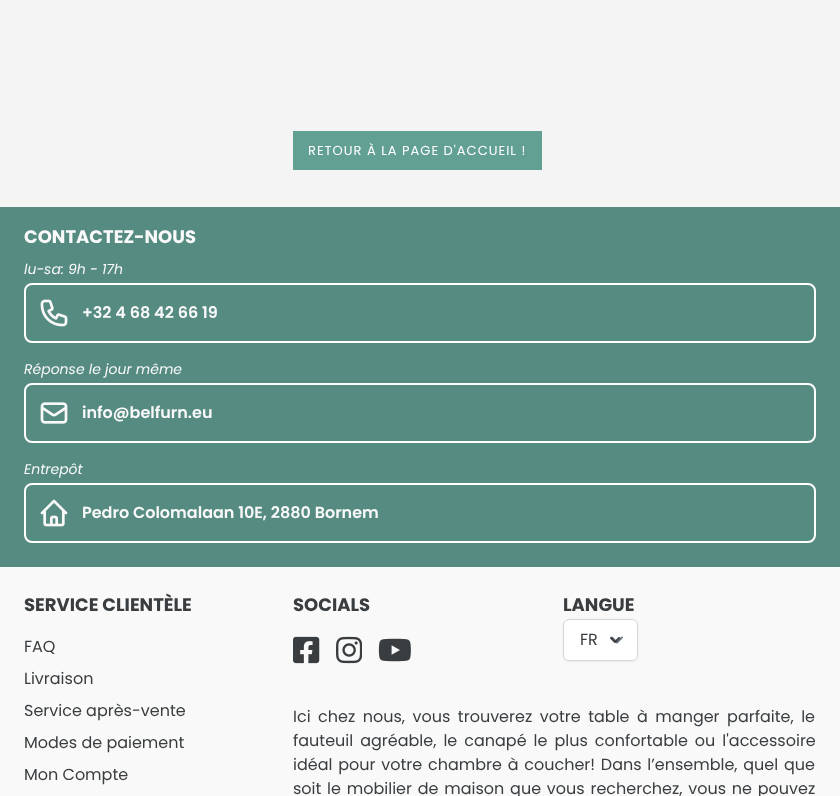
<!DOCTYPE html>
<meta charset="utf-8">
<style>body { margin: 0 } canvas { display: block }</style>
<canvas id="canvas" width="840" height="796"></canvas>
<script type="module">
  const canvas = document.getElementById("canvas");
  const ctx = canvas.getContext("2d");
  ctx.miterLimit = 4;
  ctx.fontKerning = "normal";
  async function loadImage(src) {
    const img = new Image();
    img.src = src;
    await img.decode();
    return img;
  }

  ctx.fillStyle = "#f4f4f4";
  ctx.fillRect(0, 0, 840, 796);
  ctx.fillStyle = "#63a094";
  ctx.fillRect(293, 131, 249, 39);
  ctx.letterSpacing = "1px";
  ctx.font = "13px Poppins";
  ctx.fillStyle = "#ffffff";
  ctx.fillText("RETOUR À LA PAGE D'ACCUEIL !", 308, 155);
  ctx.fillStyle = "#f9f9f9";
  ctx.fillRect(0, 567, 840, 229);
  ctx.fillStyle = "#558b81";
  ctx.fillRect(0, 207, 840, 360);
  ctx.letterSpacing = "0px";
  ctx.font = "bold 18px Poppins";
  ctx.fillStyle = "#f9f9f9";
  ctx.fillText("CONTACTEZ-NOUS", 24, 243);
  ctx.font = "italic 14px Poppins";
  ctx.fillText("lu-sa: 9h - 17h", 24, 274);
  ctx.beginPath();
  ctx.roundRect(25, 284, 790, 58, 7);
  ctx.strokeStyle = "#ffffff";
  ctx.lineWidth = 2;
  ctx.stroke();
  ctx.drawImage(await loadImage("img1.png"), 40, 299, 28, 28);
  ctx.font = "600 16px Poppins";
  ctx.fillText("+32 4 68 42 66 19", 82, 318);
  ctx.font = "italic 14px Poppins";
  ctx.fillText("Réponse le jour même", 24, 374);
  ctx.beginPath();
  ctx.roundRect(25, 384, 790, 58, 7);
  ctx.stroke();
  ctx.drawImage(await loadImage("img2.png"), 40, 402, 28, 22);
  ctx.font = "600 16px Poppins";
  ctx.fillText("info@belfurn.eu", 82, 418);
  ctx.font = "italic 14px Poppins";
  ctx.fillText("Entrepôt", 24, 474);
  ctx.beginPath();
  ctx.roundRect(25, 484, 790, 58, 7);
  ctx.stroke();
  ctx.drawImage(await loadImage("img3.png"), 40, 499, 28, 28);
  ctx.font = "600 16px Poppins";
  ctx.fillText("Pedro Colomalaan 10E, 2880 Bornem", 82, 518);
  ctx.font = "bold 18px Poppins";
  ctx.fillStyle = "#393d3f";
  ctx.fillText("SERVICE CLIENTÈLE", 24, 611);
  ctx.font = "16px Poppins";
  ctx.fillText("FAQ", 24, 652);
  ctx.fillText("Livraison", 24, 684);
  ctx.fillText("Service après-vente", 24, 716);
  ctx.fillText("Modes de paiement", 24, 748);
  ctx.fillText("Mon Compte", 24, 780);
  ctx.font = "bold 18px Poppins";
  ctx.fillText("SOCIALS", 293, 611);
  ctx.drawImage(await loadImage("img4.png"), 293, 636, 27, 28);
  ctx.drawImage(await loadImage("img5.png"), 336, 636, 26, 28);
  ctx.drawImage(await loadImage("img6.png"), 378, 638, 33, 24);
  ctx.fillText("LANGUE", 563, 611);
  ctx.fillStyle = "rgba(0, 0, 0, 0.05)";
  ctx.filter = "blur(1px)";
  ctx.beginPath();
  ctx.roundRect(563, 620, 75, 42, 6);
  ctx.fill();
  ctx.filter = "none";
  ctx.fillStyle = "#ffffff";
  ctx.beginPath();
  ctx.roundRect(563, 619, 75, 42, 6);
  ctx.fill();
  ctx.beginPath();
  ctx.moveTo(612, 637.5);
  ctx.lineTo(617, 642.5);
  ctx.lineTo(622, 637.5);
  ctx.strokeStyle = "#6b7280";
  ctx.lineWidth = 1.8;
  ctx.lineCap = "round";
  ctx.lineJoin = "round";
  ctx.stroke();
  ctx.beginPath();
  ctx.roundRect(563.5, 619.5, 74, 41, 5.5);
  ctx.strokeStyle = "#d1d5db";
  ctx.lineWidth = 1;
  ctx.lineJoin = "miter";
  ctx.stroke();
  ctx.font = "16px Poppins";
  ctx.fillStyle = "#393d3f";
  ctx.fillText("FR", 580, 645);
  ctx.drawImage(await loadImage("img7.png"), 610, 637, 10, 6);
  ctx.wordSpacing = "3.25px";
  ctx.fillText("Ici chez nous, vous trouverez votre table à manger parfaite, le", 293, 722);
  ctx.wordSpacing = "2.75px";
  ctx.fillText("fauteuil agréable, le canapé le plus confortable ou l'accessoire", 293, 746);
  ctx.wordSpacing = "1.5px";
  ctx.fillText("idéal pour votre chambre à coucher! Dans l’ensemble, quel que", 293, 770);
  ctx.fillText("soit le mobilier de maison que vous recherchez, vous ne pouvez", 293, 794);
</script>
